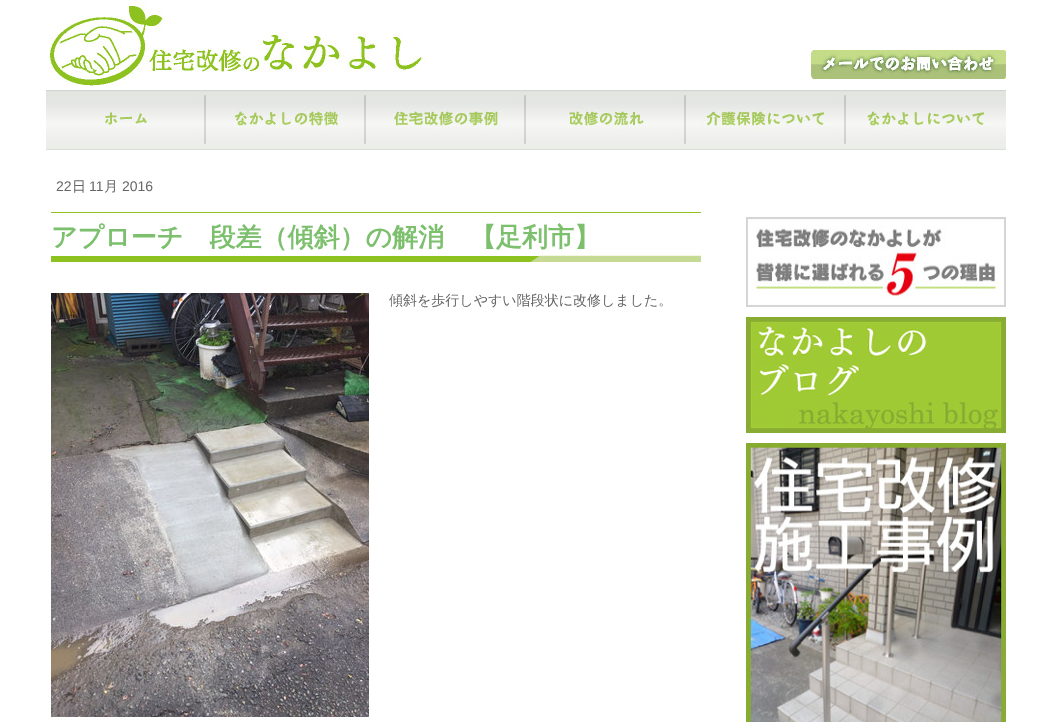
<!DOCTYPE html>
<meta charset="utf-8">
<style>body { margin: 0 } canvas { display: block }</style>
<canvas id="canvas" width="1052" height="722"></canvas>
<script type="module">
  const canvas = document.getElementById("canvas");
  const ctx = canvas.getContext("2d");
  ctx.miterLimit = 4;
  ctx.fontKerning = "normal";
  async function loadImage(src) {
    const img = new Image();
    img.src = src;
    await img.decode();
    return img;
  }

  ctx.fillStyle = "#ffffff";
  ctx.fillRect(0, 0, 1052, 722);
  ctx.drawImage(await loadImage("img1.png"), 49, 0, 376, 86);
  ctx.drawImage(await loadImage("img2.png"), 811, 50, 195, 29);
  ctx.drawImage(await loadImage("img3.png"), 46, 90, 160, 60);
  ctx.drawImage(await loadImage("img4.png"), 206, 90, 160, 60);
  ctx.drawImage(await loadImage("img5.png"), 366, 90, 160, 60);
  ctx.drawImage(await loadImage("img6.png"), 526, 90, 160, 60);
  ctx.drawImage(await loadImage("img7.png"), 686, 90, 160, 60);
  ctx.drawImage(await loadImage("img8.png"), 846, 90, 160, 60);
  ctx.font = "14px Liberation Sans";
  ctx.fillStyle = "#666666";
  ctx.fillText("22", 56, 191);
  ctx.font = "500 14px WenQuanYi Zen Hei";
  ctx.fillText("日", 72, 191);
  ctx.font = "14px Liberation Sans";
  ctx.fillText("11", 89, 191);
  ctx.font = "500 14px WenQuanYi Zen Hei";
  ctx.fillText("月", 104, 191);
  ctx.font = "14px Liberation Sans";
  ctx.fillText("2016", 122, 191);
  ctx.drawImage(await loadImage("img9.png"), 51, 212, 650, 50);
  ctx.font = "bold 26px WenQuanYi Zen Hei";
  ctx.fillStyle = "#7cc06d";
  ctx.fillText("アプローチ　段差（傾斜）の解消　【足利市】", 51, 246);
  ctx.drawImage(await loadImage("img10.png"), 51, 293, 318, 424);
  ctx.font = "500 14px WenQuanYi Zen Hei";
  ctx.fillStyle = "#666666";
  ctx.fillText("傾斜を歩行しやすい階段状に改修しました。", 389, 305);
  ctx.drawImage(await loadImage("img11.png"), 746, 217, 260, 90);
  ctx.drawImage(await loadImage("img12.png"), 746, 317, 260, 116);
  ctx.drawImage(await loadImage("img13.png"), 746, 443, 260, 279);
</script>
